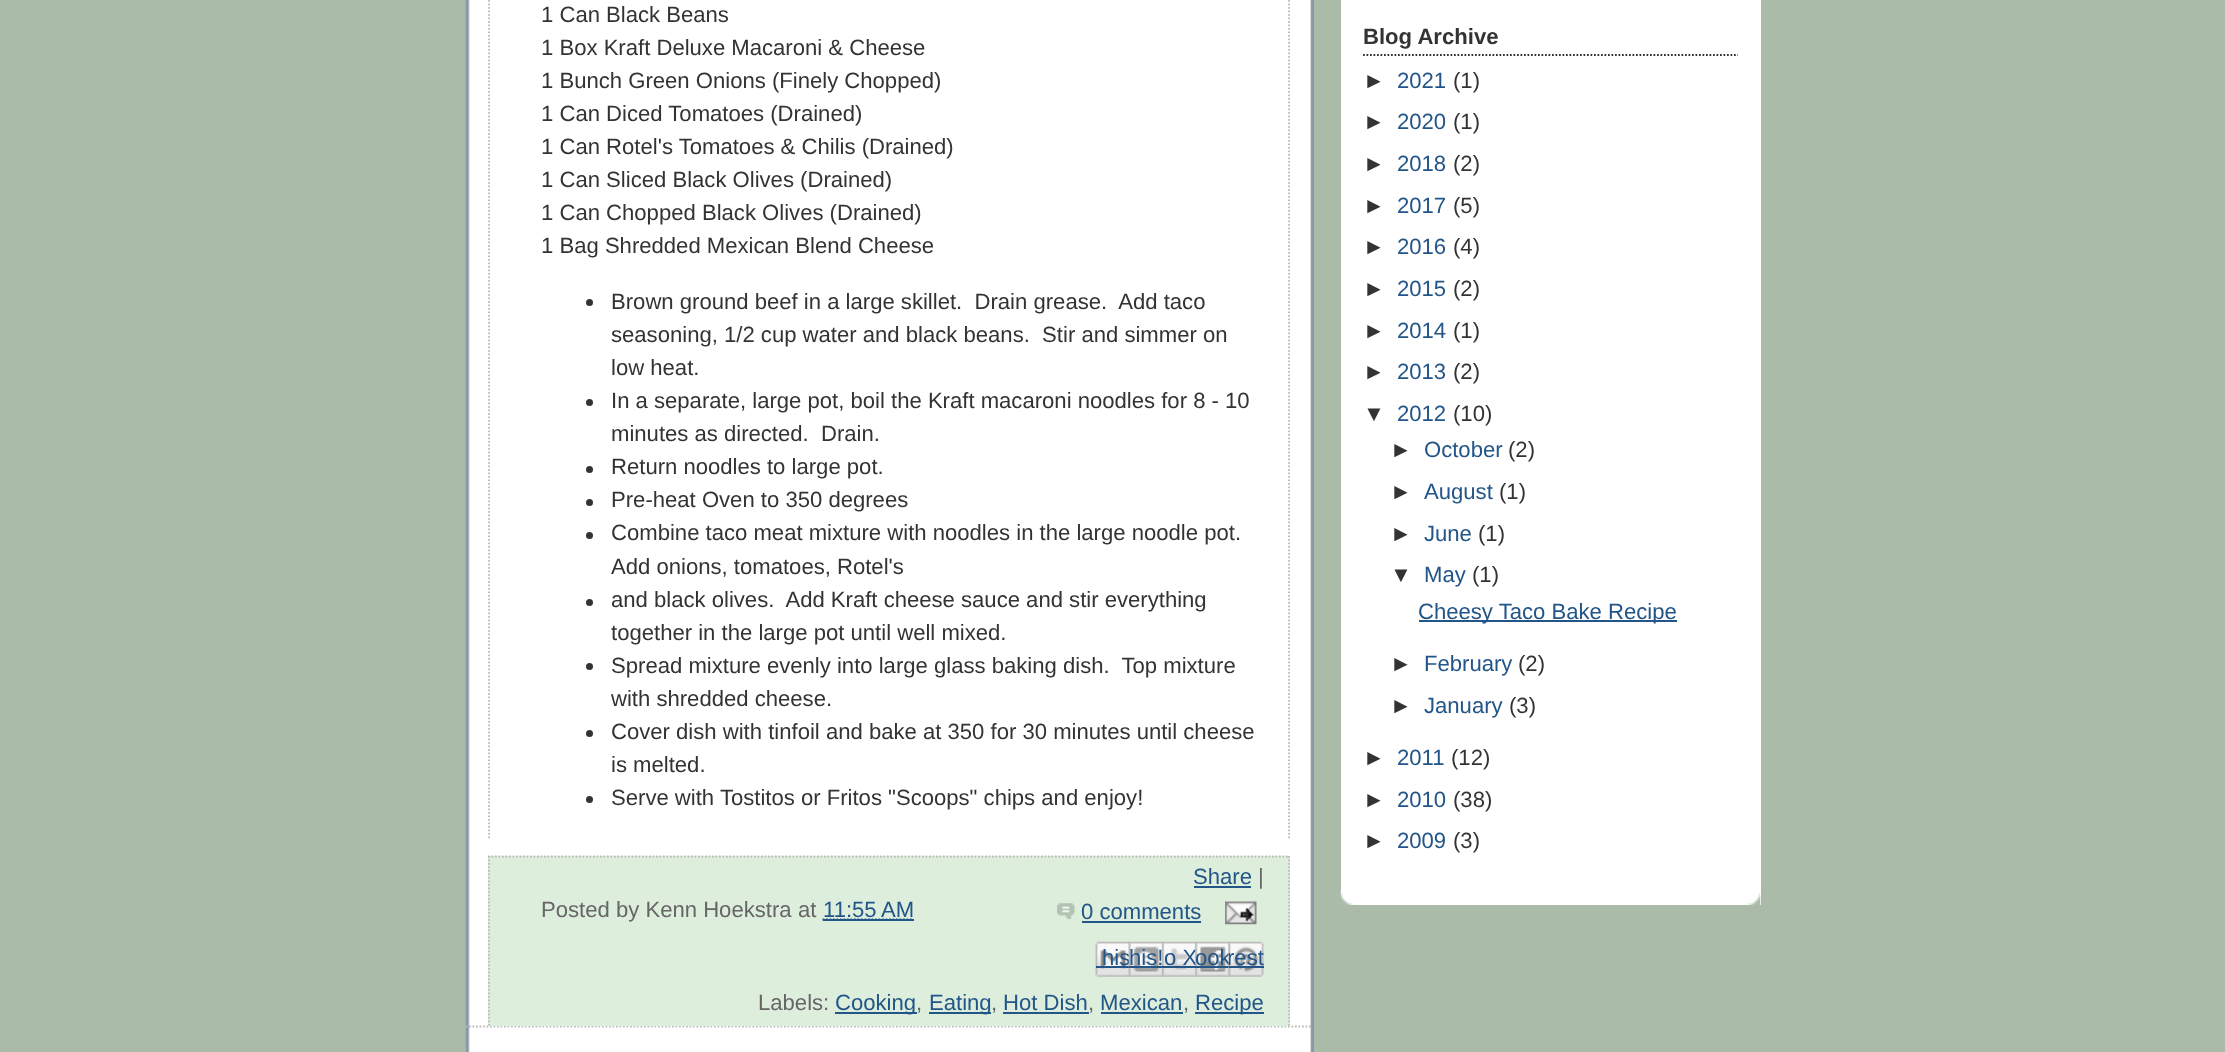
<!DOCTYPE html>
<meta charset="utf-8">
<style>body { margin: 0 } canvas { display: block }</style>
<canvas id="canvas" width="2225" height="1052"></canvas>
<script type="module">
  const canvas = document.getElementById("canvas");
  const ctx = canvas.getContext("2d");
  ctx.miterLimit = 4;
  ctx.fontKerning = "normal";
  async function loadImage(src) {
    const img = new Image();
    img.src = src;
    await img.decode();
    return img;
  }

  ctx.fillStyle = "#aabbaa";
  ctx.fillRect(0, 0, 2225, 1052);
  ctx.fillStyle = "#ffffff";
  ctx.fillRect(468, 0, 844, 1052);
  ctx.drawImage(await loadImage("img1.png"), 465, 0, 849, 1052);
  ctx.save();
  ctx.beginPath();
  ctx.rect(466, 0, 848, 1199);
  ctx.clip();
  ctx.beginPath();
  ctx.moveTo(465.5, 1026.5);
  ctx.lineTo(1312.5, 1026.5);
  ctx.strokeStyle = "#bbbbbb";
  ctx.lineWidth = 1.8;
  ctx.setLineDash([1.75, 1.75]);
  ctx.stroke();
  ctx.restore();
  ctx.beginPath();
  ctx.moveTo(1289, -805);
  ctx.lineTo(1289, 840);
  ctx.strokeStyle = "#bbbbbb";
  ctx.lineWidth = 1.8;
  ctx.setLineDash([1.75, 1.75]);
  ctx.stroke();
  ctx.beginPath();
  ctx.moveTo(489, -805);
  ctx.lineTo(489, 840);
  ctx.stroke();
  ctx.font = "22.1px Liberation Sans";
  ctx.fillStyle = "#333333";
  ctx.fillText("1 Can Black Beans", 541, 22);
  ctx.fillText("1 Box Kraft Deluxe Macaroni & Cheese", 541, 55);
  ctx.fillText("1 Bunch Green Onions (Finely Chopped)", 541, 88);
  ctx.fillText("1 Can Diced Tomatoes (Drained)", 541, 121);
  ctx.fillText("1 Can Rotel's Tomatoes & Chilis (Drained)", 541, 154);
  ctx.fillText("1 Can Sliced Black Olives (Drained)", 541, 187);
  ctx.fillText("1 Can Chopped Black Olives (Drained)", 541, 220);
  ctx.fillText("1 Bag Shredded Mexican Blend Cheese", 541, 253);
  ctx.beginPath();
  ctx.arc(589.5, 302.5, 3.5, 0, Math.PI * 2);
  ctx.fill();
  ctx.fillText("Brown ground beef in a large skillet.  Drain grease.  Add taco", 611, 309);
  ctx.fillText("seasoning, 1/2 cup water and black beans.  Stir and simmer on", 611, 342);
  ctx.fillText("low heat.", 611, 375);
  ctx.beginPath();
  ctx.arc(589.5, 402.5, 3.5, 0, Math.PI * 2);
  ctx.fill();
  ctx.fillText("In a separate, large pot, boil the Kraft macaroni noodles for 8 - 10", 611, 408);
  ctx.fillText("minutes as directed.  Drain.", 611, 441);
  ctx.beginPath();
  ctx.arc(589.5, 469.5, 3.5, 0, Math.PI * 2);
  ctx.fill();
  ctx.fillText("Return noodles to large pot.", 611, 474);
  ctx.beginPath();
  ctx.arc(589.5, 502.5, 3.5, 0, Math.PI * 2);
  ctx.fill();
  ctx.fillText("Pre-heat Oven to 350 degrees", 611, 507);
  ctx.beginPath();
  ctx.arc(589.5, 535.5, 3.5, 0, Math.PI * 2);
  ctx.fill();
  ctx.fillText("Combine taco meat mixture with noodles in the large noodle pot.", 611, 540);
  ctx.fillText("Add onions, tomatoes, Rotel's", 611, 574);
  ctx.beginPath();
  ctx.arc(589.5, 602.5, 3.5, 0, Math.PI * 2);
  ctx.fill();
  ctx.fillText("and black olives.  Add Kraft cheese sauce and stir everything", 611, 607);
  ctx.fillText("together in the large pot until well mixed.", 611, 640);
  ctx.beginPath();
  ctx.arc(589.5, 666.5, 3.5, 0, Math.PI * 2);
  ctx.fill();
  ctx.fillText("Spread mixture evenly into large glass baking dish.  Top mixture", 611, 673);
  ctx.fillText("with shredded cheese.", 611, 706);
  ctx.beginPath();
  ctx.arc(589.5, 733.5, 3.5, 0, Math.PI * 2);
  ctx.fill();
  ctx.fillText("Cover dish with tinfoil and bake at 350 for 30 minutes until cheese", 611, 739);
  ctx.fillText("is melted.", 611, 772);
  ctx.beginPath();
  ctx.arc(589.5, 799.5, 3.5, 0, Math.PI * 2);
  ctx.fill();
  ctx.fillText("Serve with Tostitos or Fritos \"Scoops\" chips and enjoy!", 611, 805);
  ctx.fillStyle = "#ddeedd";
  ctx.fillRect(488, 856, 802, 170);
  ctx.beginPath();
  ctx.moveTo(488, 856.5);
  ctx.lineTo(1290, 856.5);
  ctx.stroke();
  ctx.beginPath();
  ctx.moveTo(1289, 856);
  ctx.lineTo(1289, 1025.5);
  ctx.stroke();
  ctx.beginPath();
  ctx.moveTo(489, 856);
  ctx.lineTo(489, 1025.5);
  ctx.stroke();
  ctx.fillStyle = "#225588";
  ctx.fillText("Share", 1193, 884);
  ctx.fillRect(1194, 886, 57, 2);
  ctx.fillStyle = "#666666";
  ctx.fillText("|", 1258, 884);
  ctx.fillText("Posted by Kenn Hoekstra", 541, 917);
  ctx.fillText("at", 798, 917);
  ctx.fillStyle = "#225588";
  ctx.fillText("11:55 AM", 823, 917);
  ctx.beginPath();
  ctx.moveTo(822.5, 919.5);
  ctx.lineTo(913.5, 919.5);
  ctx.strokeStyle = "#225588";
  ctx.stroke();
  ctx.fillRect(823, 919, 91, 2);
  ctx.drawImage(await loadImage("img2.png"), 1057, 903, 18, 16);
  ctx.fillText("0 comments", 1081, 919);
  ctx.fillRect(1082, 921, 119, 2);
  ctx.drawImage(await loadImage("img3.png"), 1225, 901, 32, 24);
  ctx.drawImage(await loadImage("img4.png"), 1095, 941, 36, 36);
  ctx.fillText("his", 1102, 965);
  ctx.fillRect(1096, 966, 35, 2);
  ctx.drawImage(await loadImage("img5.png"), 1128, 941, 36, 36);
  ctx.fillText("his!", 1129, 965);
  ctx.fillRect(1129, 966, 35, 2);
  ctx.drawImage(await loadImage("img6.png"), 1162, 941, 35, 36);
  ctx.fillText("o X", 1164, 965);
  ctx.fillRect(1162, 966, 35, 2);
  ctx.drawImage(await loadImage("img7.png"), 1195, 941, 36, 36);
  ctx.fillText("ook", 1195, 965);
  ctx.fillRect(1195, 966, 35, 2);
  ctx.drawImage(await loadImage("img8.png"), 1228, 941, 36, 36);
  ctx.save();
  ctx.beginPath();
  ctx.rect(1229, 942, 35, 35);
  ctx.clip();
  ctx.fillText("rest", 1227, 965);
  ctx.restore();
  ctx.fillRect(1229, 966, 35, 2);
  ctx.fillStyle = "#666666";
  ctx.fillText("Labels:", 758, 1010);
  ctx.fillStyle = "#225588";
  ctx.fillRect(835, 1012, 82, 2);
  ctx.fillText("Cooking", 835, 1010);
  ctx.fillStyle = "#666666";
  ctx.fillText(",", 916, 1010);
  ctx.fillStyle = "#225588";
  ctx.fillRect(929, 1012, 62, 2);
  ctx.fillText("Eating", 929, 1010);
  ctx.fillStyle = "#666666";
  ctx.fillText(",", 991, 1010);
  ctx.fillStyle = "#225588";
  ctx.fillText("Hot Dish", 1003, 1010);
  ctx.fillStyle = "#666666";
  ctx.fillText(",", 1088, 1010);
  ctx.fillStyle = "#225588";
  ctx.fillRect(1003, 1012, 86, 2);
  ctx.fillText("Mexican", 1100, 1010);
  ctx.fillStyle = "#666666";
  ctx.fillText(",", 1183, 1010);
  ctx.fillStyle = "#225588";
  ctx.fillRect(1101, 1012, 82, 2);
  ctx.fillRect(1195, 1012, 69, 2);
  ctx.fillText("Recipe", 1195, 1010);
  ctx.fillStyle = "#ffffff";
  ctx.fillRect(1341, 0, 420, 905);
  ctx.drawImage(await loadImage("img9.png"), 1340, 891, 421, 14);
  ctx.beginPath();
  ctx.moveTo(1363, 55);
  ctx.lineTo(1738, 55);
  ctx.strokeStyle = "#333333";
  ctx.stroke();
  ctx.font = "bold 22.1px Liberation Sans";
  ctx.fillStyle = "#333333";
  ctx.fillText("Blog Archive", 1363, 44);
  ctx.font = "22.1px Liberation Sans";
  ctx.fillText("►", 1363, 88);
  ctx.fillStyle = "#225588";
  ctx.fillText("2021", 1397, 88);
  ctx.fillStyle = "#333333";
  ctx.fillText("(1)", 1453, 88);
  ctx.fillText("►", 1363, 129);
  ctx.fillStyle = "#225588";
  ctx.fillText("2020", 1397, 129);
  ctx.fillStyle = "#333333";
  ctx.fillText("(1)", 1453, 129);
  ctx.fillText("►", 1363, 171);
  ctx.fillStyle = "#225588";
  ctx.fillText("2018", 1397, 171);
  ctx.fillStyle = "#333333";
  ctx.fillText("(2)", 1453, 171);
  ctx.fillText("►", 1363, 213);
  ctx.fillStyle = "#225588";
  ctx.fillText("2017", 1397, 213);
  ctx.fillStyle = "#333333";
  ctx.fillText("(5)", 1453, 213);
  ctx.fillText("►", 1363, 254);
  ctx.fillStyle = "#225588";
  ctx.fillText("2016", 1397, 254);
  ctx.fillStyle = "#333333";
  ctx.fillText("(4)", 1453, 254);
  ctx.fillText("►", 1363, 296);
  ctx.fillStyle = "#225588";
  ctx.fillText("2015", 1397, 296);
  ctx.fillStyle = "#333333";
  ctx.fillText("(2)", 1453, 296);
  ctx.fillText("►", 1363, 338);
  ctx.fillStyle = "#225588";
  ctx.fillText("2014", 1397, 338);
  ctx.fillStyle = "#333333";
  ctx.fillText("(1)", 1453, 338);
  ctx.fillText("►", 1363, 379);
  ctx.fillStyle = "#225588";
  ctx.fillText("2013", 1397, 379);
  ctx.fillStyle = "#333333";
  ctx.fillText("(2)", 1453, 379);
  ctx.fillText("▼", 1363, 421);
  ctx.fillStyle = "#225588";
  ctx.fillText("2012", 1397, 421);
  ctx.fillStyle = "#333333";
  ctx.fillText("(10)", 1453, 421);
  ctx.fillText("►", 1390, 457);
  ctx.fillStyle = "#225588";
  ctx.fillText("October", 1424, 457);
  ctx.fillStyle = "#333333";
  ctx.fillText("(2)", 1508, 457);
  ctx.fillText("►", 1390, 499);
  ctx.fillStyle = "#225588";
  ctx.fillText("August", 1424, 499);
  ctx.fillStyle = "#333333";
  ctx.fillText("(1)", 1499, 499);
  ctx.fillText("►", 1390, 541);
  ctx.fillStyle = "#225588";
  ctx.fillText("June", 1424, 541);
  ctx.fillStyle = "#333333";
  ctx.fillText("(1)", 1478, 541);
  ctx.fillText("▼", 1390, 582);
  ctx.fillStyle = "#225588";
  ctx.fillText("May", 1424, 582);
  ctx.fillStyle = "#333333";
  ctx.fillText("(1)", 1472, 582);
  ctx.fillStyle = "#225588";
  ctx.fillRect(1419, 620, 258, 2);
  ctx.fillText("Cheesy Taco Bake Recipe", 1418, 619);
  ctx.fillStyle = "#333333";
  ctx.fillText("►", 1390, 671);
  ctx.fillStyle = "#225588";
  ctx.fillText("February", 1424, 671);
  ctx.fillStyle = "#333333";
  ctx.fillText("(2)", 1518, 671);
  ctx.fillText("►", 1390, 713);
  ctx.fillStyle = "#225588";
  ctx.fillText("January", 1424, 713);
  ctx.fillStyle = "#333333";
  ctx.fillText("(3)", 1509, 713);
  ctx.fillText("►", 1363, 765);
  ctx.fillStyle = "#225588";
  ctx.fillText("2011", 1397, 765);
  ctx.fillStyle = "#333333";
  ctx.fillText("(12)", 1451, 765);
  ctx.fillText("►", 1363, 807);
  ctx.fillStyle = "#225588";
  ctx.fillText("2010", 1397, 807);
  ctx.fillStyle = "#333333";
  ctx.fillText("(38)", 1453, 807);
  ctx.fillText("►", 1363, 848);
  ctx.fillStyle = "#225588";
  ctx.fillText("2009", 1397, 848);
  ctx.fillStyle = "#333333";
  ctx.fillText("(3)", 1453, 848);
</script>
